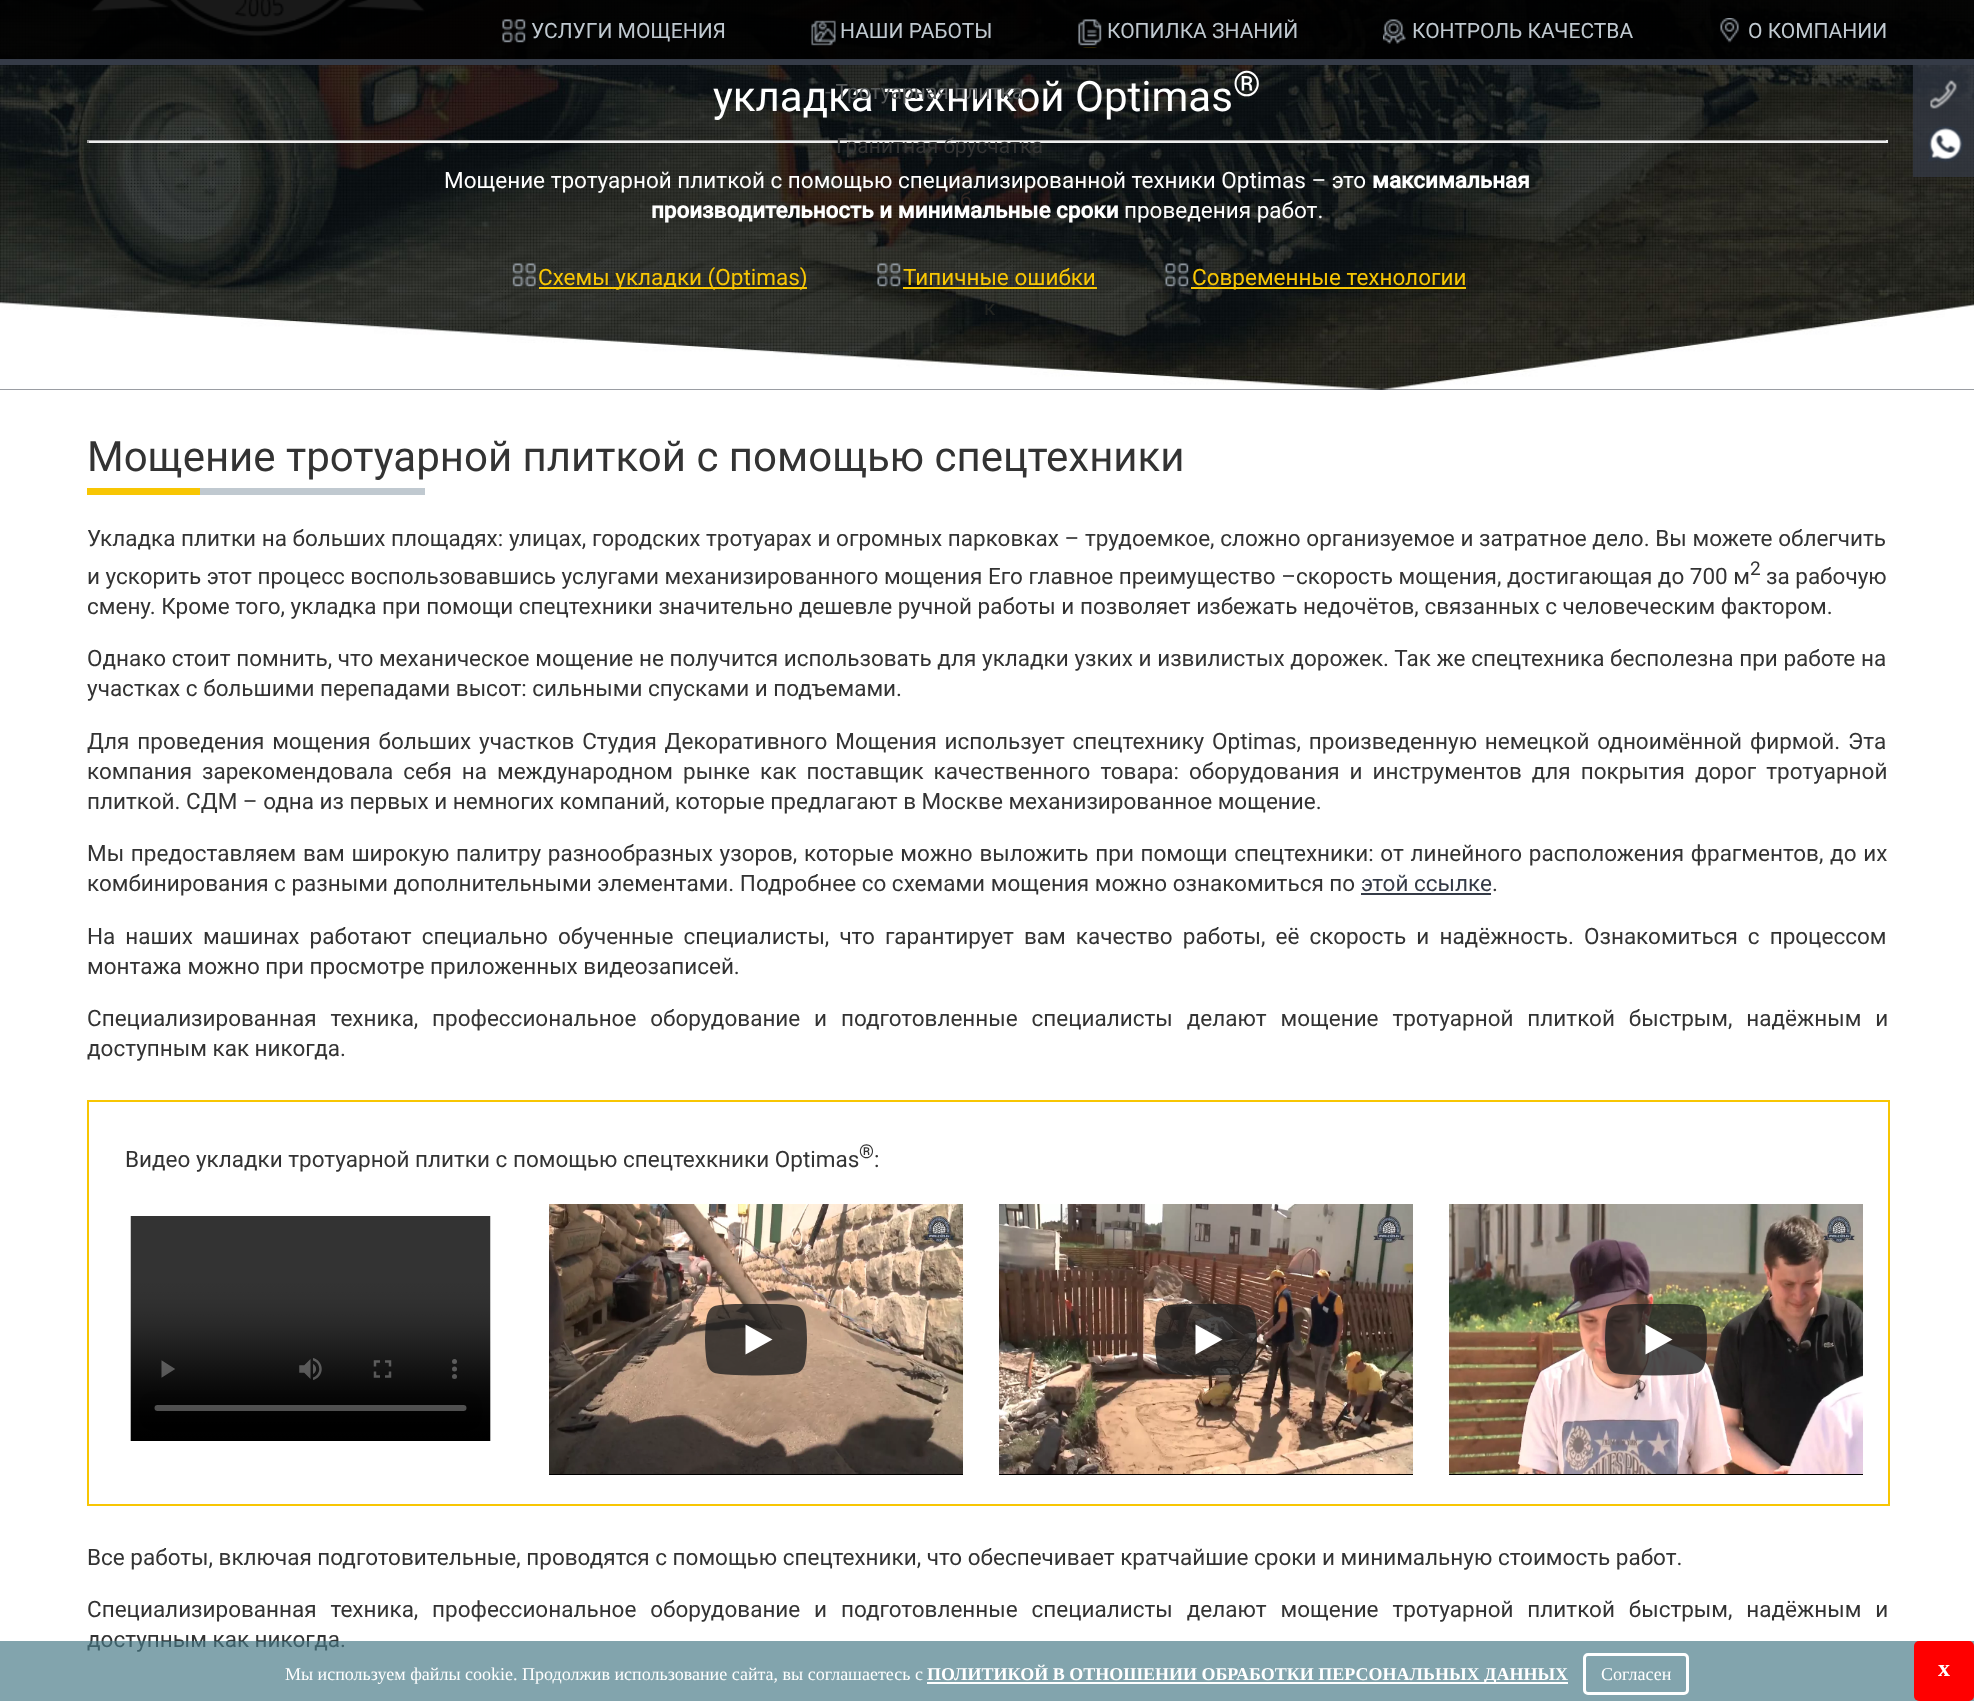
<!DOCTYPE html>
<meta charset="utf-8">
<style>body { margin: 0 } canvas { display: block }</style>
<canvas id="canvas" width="1974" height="1701"></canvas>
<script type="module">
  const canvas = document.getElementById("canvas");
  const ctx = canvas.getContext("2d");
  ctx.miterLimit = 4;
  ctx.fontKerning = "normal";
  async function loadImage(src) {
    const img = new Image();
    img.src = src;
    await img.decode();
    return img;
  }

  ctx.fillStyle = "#ffffff";
  ctx.fillRect(0, 0, 1974, 1701);
  ctx.fillStyle = "#353b47";
  ctx.fillRect(0, 389, 1974, 1);
  ctx.drawImage(await loadImage("img9.png"), 0, 0, 1974, 390);
  ctx.drawImage(await loadImage("img1.png"), 91, 0, 334, 36);
  ctx.fillStyle = "rgba(0, 0, 0, 0.9)";
  ctx.fillRect(0, 0, 1974, 59);
  ctx.fillStyle = "#353b47";
  ctx.fillRect(0, 59, 1974, 6);
  ctx.drawImage(await loadImage("img2.png"), 502, 19, 24, 24);
  ctx.font = "21px Roboto";
  ctx.fillStyle = "#c0c9d0";
  ctx.fillText("УСЛУГИ МОЩЕНИЯ", 531, 38);
  ctx.drawImage(await loadImage("img3.png"), 811, 20, 25, 26);
  ctx.fillText("НАШИ РАБОТЫ", 840, 38);
  ctx.font = "42px Roboto";
  ctx.fillStyle = "#ffffff";
  ctx.fillText("укладка техникой Optimas", 713, 111);
  ctx.font = "21px Roboto";
  ctx.fillStyle = "#56595a";
  ctx.fillText("- Тротуарная плитка", 825, 99);
  ctx.fillStyle = "#9f9f9f";
  ctx.fillRect(87, 140, 1800, 1);
  ctx.fillStyle = "#eeeeee";
  ctx.fillRect(1886, 140, 2, 3);
  ctx.fillRect(87, 141, 1800, 2);
  ctx.fillStyle = "#333333";
  ctx.fillText("Гранитная брусчатка", 836, 153);
  ctx.fillStyle = "#2e2522";
  ctx.fillText("б", 960, 207);
  ctx.fillStyle = "#232522";
  ctx.fillText("к", 984, 315);
  ctx.drawImage(await loadImage("img4.png"), 1078, 19, 24, 29);
  ctx.fillStyle = "#c0c9d0";
  ctx.fillText("КОПИЛКА ЗНАНИЙ", 1107, 38);
  ctx.drawImage(await loadImage("img5.png"), 1383, 19, 23, 25);
  ctx.fillText("КОНТРОЛЬ КАЧЕСТВА", 1412, 38);
  ctx.drawImage(await loadImage("img6.png"), 1720, 18, 19, 25);
  ctx.fillText("О КОМПАНИИ", 1748, 38);
  ctx.fillStyle = "rgba(53, 59, 71, 0.7)";
  ctx.fillRect(1913, 65, 61, 112);
  ctx.drawImage(await loadImage("img7.png"), 1930, 80, 27, 29);
  ctx.drawImage(await loadImage("img8.png"), 1928, 126, 36, 36);
  ctx.font = "35px Roboto";
  ctx.fillStyle = "#ffffff";
  ctx.fillText("®", 1233, 96);
  ctx.fillStyle = "#9f9f9f";
  ctx.fillRect(87, 140, 2, 3);
  ctx.font = "22.5px Roboto";
  ctx.fillStyle = "#ffffff";
  ctx.fillText("Мощение тротуарной плиткой с помощью специализированной техники Optimas – это", 444, 188);
  ctx.font = "bold 22.5px Roboto";
  ctx.fillText("максимальная", 1372, 188);
  ctx.fillText("производительность и минимальные сроки", 651, 218);
  ctx.font = "22.5px Roboto";
  ctx.fillText("проведения работ.", 1124, 218);
  ctx.drawImage(await loadImage("img10.png"), 512, 263, 24, 24);
  ctx.fillStyle = "#f8c603";
  ctx.fillRect(539, 287, 268, 2);
  ctx.fillText("Схемы укладки (Optimas)", 538, 285);
  ctx.drawImage(await loadImage("img11.png"), 877, 263, 24, 24);
  ctx.fillText("Типичные ошибки", 903, 285);
  ctx.fillRect(903, 287, 194, 2);
  ctx.drawImage(await loadImage("img12.png"), 1165, 263, 24, 24);
  ctx.fillRect(1191, 287, 275, 2);
  ctx.fillText("Современные технологии", 1192, 285);
  ctx.font = "42px Roboto";
  ctx.fillStyle = "#333333";
  ctx.fillText("Мощение тротуарной плиткой с помощью спецтехники", 87, 471);
  ctx.fillStyle = "#f8c603";
  ctx.fillRect(87, 488, 113, 7);
  ctx.fillStyle = "#c0c9d0";
  ctx.fillRect(200, 488, 225, 7);
  ctx.wordSpacing = "0.1px";
  ctx.font = "22.5px Roboto";
  ctx.fillStyle = "#333333";
  ctx.fillText("Укладка плитки на больших площадях: улицах, городских тротуарах и огромных парковках – трудоемкое, сложно организуемое и затратное дело. Вы можете облегчить", 87, 546);
  ctx.wordSpacing = "0px";
  ctx.fillText("и ускорить этот процесс воспользовавшись услугами механизированного мощения Его главное преимущество –скорость мощения, достигающая до 700 м", 87, 584);
  ctx.font = "19px Roboto";
  ctx.fillText("2", 1750, 575);
  ctx.font = "22.5px Roboto";
  ctx.fillText("за рабочую", 1766, 584);
  ctx.fillText("смену. Кроме того, укладка при помощи спецтехники значительно дешевле ручной работы и позволяет избежать недочётов, связанных с человеческим фактором.", 87, 614);
  ctx.wordSpacing = "0.1px";
  ctx.fillText("Однако стоит помнить, что механическое мощение не получится использовать для укладки узких и извилистых дорожек. Так же спецтехника бесполезна при работе на", 87, 666);
  ctx.wordSpacing = "0px";
  ctx.fillText("участках с большими перепадами высот: сильными спусками и подъемами.", 87, 696);
  ctx.wordSpacing = "2.25px";
  ctx.fillText("Для проведения мощения больших участков Студия Декоративного Мощения использует спецтехнику Optimas, произведенную немецкой одноимённой фирмой. Эта", 87, 749);
  ctx.wordSpacing = "4.4px";
  ctx.fillText("компания зарекомендовала себя на международном рынке как поставщик качественного товара: оборудования и инструментов для покрытия дорог тротуарной", 87, 779);
  ctx.wordSpacing = "0px";
  ctx.fillText("плиткой. СДМ – одна из первых и немногих компаний, которые предлагают в Москве механизированное мощение.", 87, 809);
  ctx.wordSpacing = "1.1px";
  ctx.fillText("Мы предоставляем вам широкую палитру разнообразных узоров, которые можно выложить при помощи спецтехники: от линейного расположения фрагментов, до их", 87, 861);
  ctx.wordSpacing = "0px";
  ctx.fillText("комбинирования с разными дополнительными элементами. Подробнее со схемами мощения можно ознакомиться по", 87, 891);
  ctx.fillStyle = "#353b47";
  ctx.fillText("этой ссылке", 1361, 891);
  ctx.fillRect(1361, 893, 130, 2);
  ctx.fillStyle = "#333333";
  ctx.fillText(".", 1492, 891);
  ctx.wordSpacing = "4.5px";
  ctx.fillText("На наших машинах работают специально обученные специалисты, что гарантирует вам качество работы, её скорость и надёжность. Ознакомиться с процессом", 87, 944);
  ctx.wordSpacing = "0px";
  ctx.fillText("монтажа можно при просмотре приложенных видеозаписей.", 87, 974);
  ctx.wordSpacing = "8.25px";
  ctx.fillText("Специализированная техника, профессиональное оборудование и подготовленные специалисты делают мощение тротуарной плиткой быстрым, надёжным и", 87, 1026);
  ctx.wordSpacing = "0px";
  ctx.fillText("доступным как никогда.", 87, 1056);
  ctx.strokeStyle = "#f8c603";
  ctx.lineWidth = 2;
  ctx.strokeRect(88, 1101, 1801, 404);
  ctx.fillText("Видео укладки тротуарной плитки с помощью спецтехкники Optimas", 125, 1167);
  ctx.font = "19px Roboto";
  ctx.fillText("®", 859, 1158);
  ctx.font = "22.5px Roboto";
  ctx.fillText(":", 874, 1167);
  ctx.drawImage(await loadImage("img13.png"), 130, 1216, 361, 225);
  ctx.fillStyle = "#000000";
  ctx.fillRect(549, 1474, 414, 1);
  ctx.drawImage(await loadImage("img14.png"), 549, 1204, 414, 270);
  ctx.drawImage(await loadImage("img15.png"), 705, 1304, 102, 72);
  ctx.fillRect(999, 1474, 414, 1);
  ctx.drawImage(await loadImage("img16.png"), 999, 1204, 414, 270);
  ctx.drawImage(await loadImage("img17.png"), 1155, 1304, 102, 72);
  ctx.fillRect(1449, 1474, 414, 1);
  ctx.drawImage(await loadImage("img18.png"), 1449, 1204, 414, 270);
  ctx.drawImage(await loadImage("img19.png"), 1605, 1304, 102, 72);
  ctx.fillStyle = "#333333";
  ctx.fillText("Все работы, включая подготовительные, проводятся с помощью спецтехники, что обеспечивает кратчайшие сроки и минимальную стоимость работ.", 87, 1565);
  ctx.wordSpacing = "8.25px";
  ctx.fillText("Специализированная техника, профессиональное оборудование и подготовленные специалисты делают мощение тротуарной плиткой быстрым, надёжным и", 87, 1617);
  ctx.wordSpacing = "0px";
  ctx.fillText("доступным как никогда.", 87, 1647);
  ctx.fillStyle = "rgba(68, 120, 132, 0.67)";
  ctx.fillRect(0, 1641, 1974, 60);
  ctx.font = "18px Liberation Serif";
  ctx.fillStyle = "#ffffff";
  ctx.fillText("Мы используем файлы cookie. Продолжив использование сайта, вы соглашаетесь с", 285, 1680);
  ctx.fillRect(927, 1682, 641, 2);
  ctx.font = "bold 18px Liberation Serif";
  ctx.fillText("ПОЛИТИКОЙ В ОТНОШЕНИИ ОБРАБОТКИ ПЕРСОНАЛЬНЫХ ДАННЫХ", 927, 1680);
  ctx.beginPath();
  ctx.roundRect(1584.5, 1654.5, 103, 39, 3.5);
  ctx.strokeStyle = "#ffffff";
  ctx.lineWidth = 3;
  ctx.stroke();
  ctx.font = "18px Liberation Serif";
  ctx.fillText("Согласен", 1601, 1680);
  ctx.fillStyle = "#ff0000";
  ctx.beginPath();
  ctx.roundRect(1914, 1641, 60, 60, 5);
  ctx.fill();
  ctx.font = "bold 24px Liberation Serif";
  ctx.fillStyle = "#ffffff";
  ctx.fillText("x", 1938, 1676);
</script>
